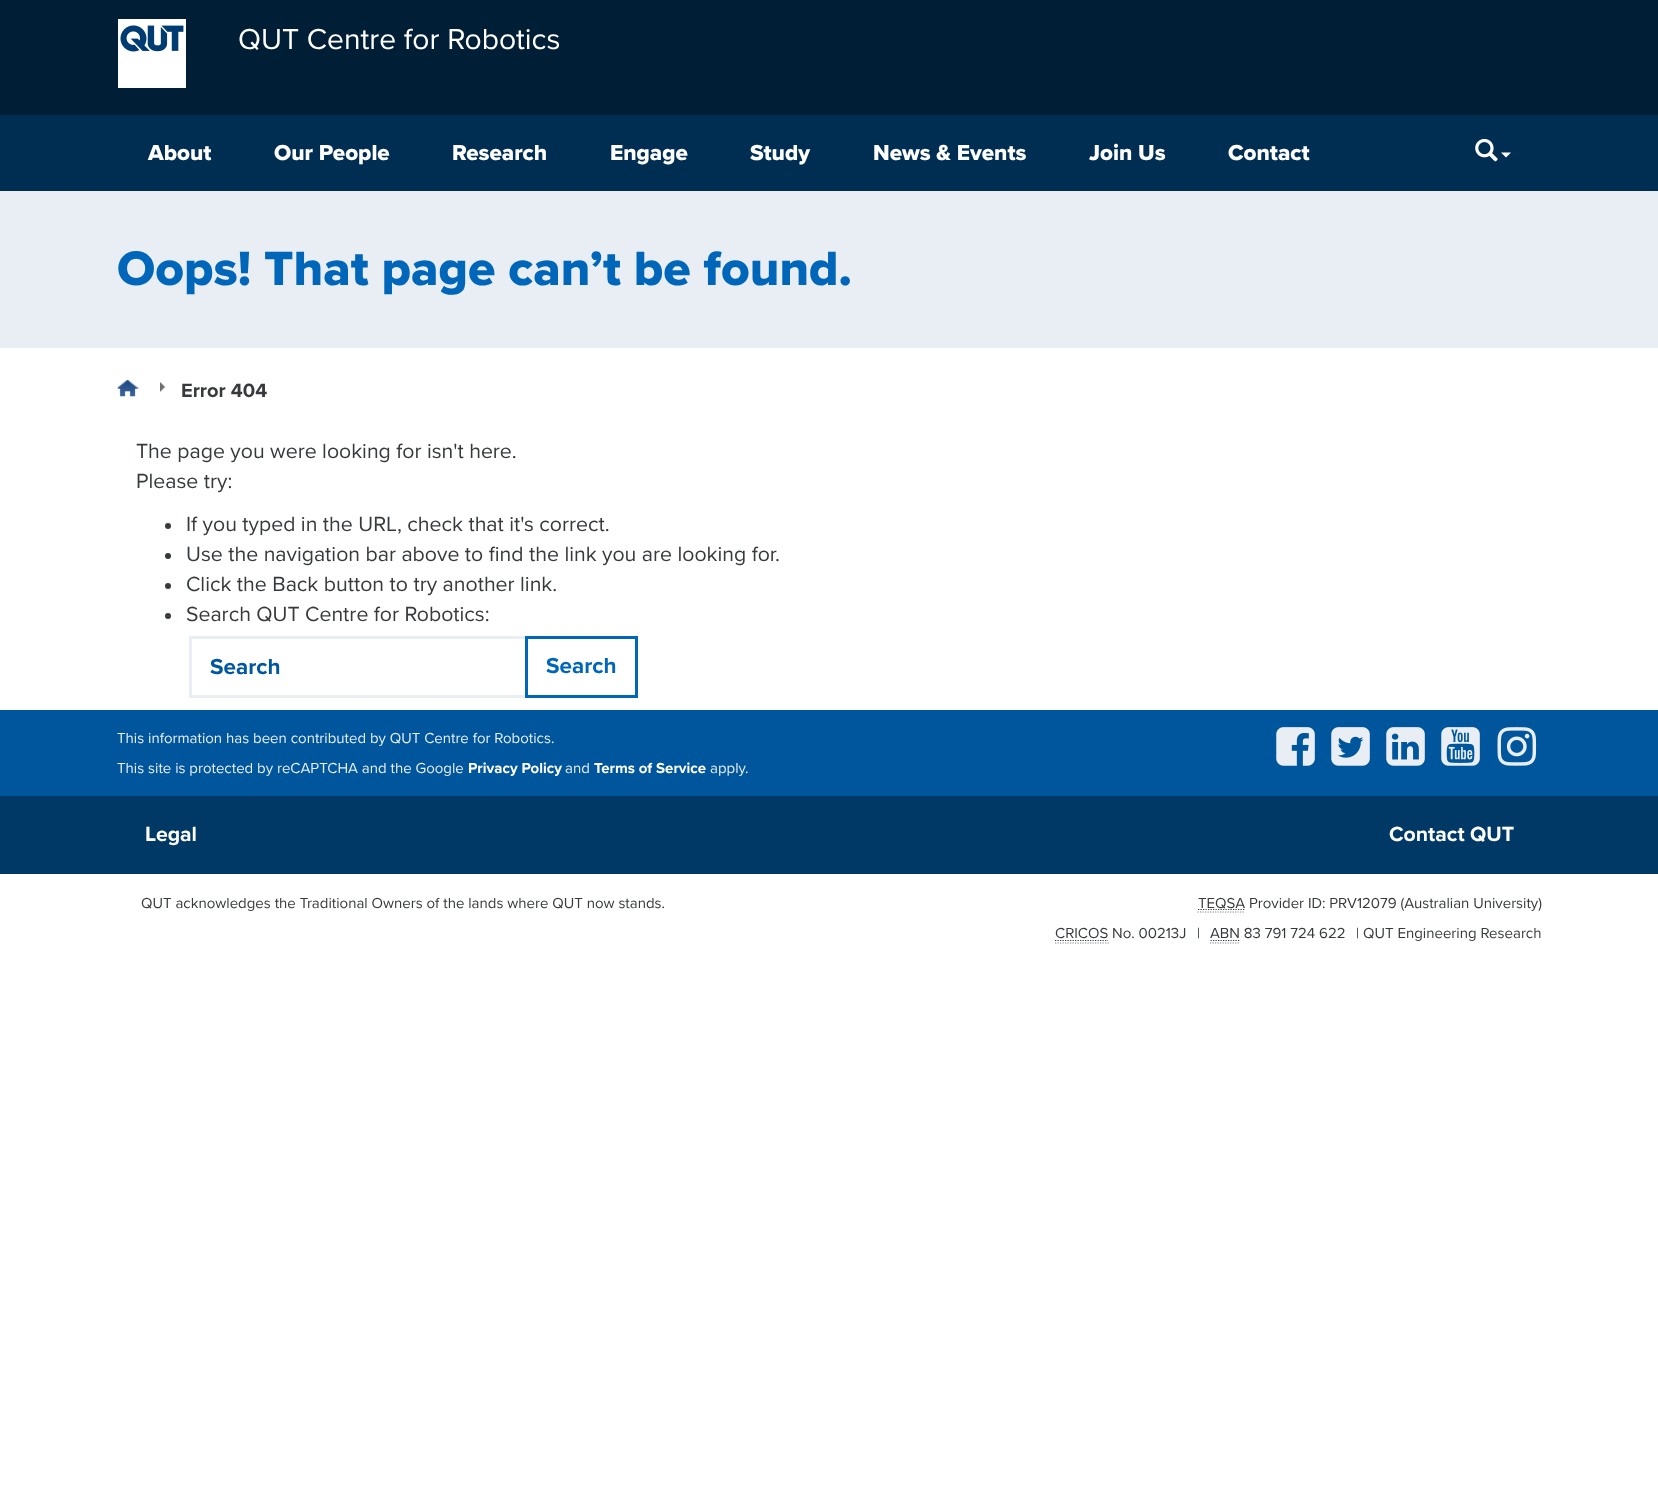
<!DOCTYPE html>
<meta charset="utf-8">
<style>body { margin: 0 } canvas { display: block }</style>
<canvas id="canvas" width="1658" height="1492"></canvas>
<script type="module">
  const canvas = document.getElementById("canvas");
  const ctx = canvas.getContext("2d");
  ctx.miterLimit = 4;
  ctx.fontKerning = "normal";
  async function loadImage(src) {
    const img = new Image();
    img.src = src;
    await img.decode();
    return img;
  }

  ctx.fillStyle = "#ffffff";
  ctx.fillRect(0, 0, 1658, 1492);
  ctx.fillStyle = "#001e36";
  ctx.fillRect(0, 0, 1658, 115);
  ctx.drawImage(await loadImage("img1.png"), 118, 19, 68, 69);
  ctx.font = "30px Proxima Nova";
  ctx.fillStyle = "#ffffff";
  ctx.fillText("QUT Centre for Robotics", 238, 49);
  ctx.fillStyle = "#002e53";
  ctx.fillRect(0, 115, 1658, 76);
  ctx.font = "800 22.5px Proxima Nova";
  ctx.fillStyle = "#ffffff";
  ctx.fillText("About", 148, 160);
  ctx.fillText("Our People", 274, 160);
  ctx.fillText("Research", 452, 160);
  ctx.fillText("Engage", 610, 160);
  ctx.fillText("Study", 750, 160);
  ctx.fillText("News & Events", 873, 160);
  ctx.fillText("Join Us", 1089, 160);
  ctx.fillText("Contact", 1228, 160);
  ctx.drawImage(await loadImage("img2.png"), 1475, 138, 23, 24);
  ctx.beginPath();
  ctx.moveTo(1501, 152.5);
  ctx.lineTo(1511, 152.5);
  ctx.lineTo(1506, 157.5);
  ctx.closePath();
  ctx.fill();
  ctx.fillStyle = "#e8eef3";
  ctx.fillRect(0, 191, 1658, 157);
  ctx.font = "800 50px Proxima Nova";
  ctx.fillStyle = "#0066b9";
  ctx.fillText("Oops! That page can’t be found.", 117, 285);
  ctx.drawImage(await loadImage("img3.png"), 117, 380, 22, 17);
  ctx.drawImage(await loadImage("img4.png"), 160, 382, 6, 10);
  ctx.font = "bold 20px Proxima Nova";
  ctx.fillStyle = "#373a3c";
  ctx.fillText("Error 404", 181, 397);
  ctx.font = "21.25px Proxima Nova";
  ctx.fillText("The page you were looking for isn't here.", 136, 458);
  ctx.fillText("Please try:", 136, 488);
  ctx.beginPath();
  ctx.arc(168, 526, 3, 0, Math.PI * 2);
  ctx.fill();
  ctx.fillText("If you typed in the URL, check that it's correct.", 186, 531);
  ctx.beginPath();
  ctx.arc(168, 556, 3, 0, Math.PI * 2);
  ctx.fill();
  ctx.fillText("Use the navigation bar above to find the link you are looking for.", 186, 561);
  ctx.beginPath();
  ctx.arc(168, 586, 3, 0, Math.PI * 2);
  ctx.fill();
  ctx.fillText("Click the Back button to try another link.", 186, 591);
  ctx.beginPath();
  ctx.arc(168, 616, 3, 0, Math.PI * 2);
  ctx.fill();
  ctx.fillText("Search QUT Centre for Robotics:", 186, 621);
  ctx.strokeStyle = "#e8eef3";
  ctx.lineWidth = 3;
  ctx.strokeRect(190.5, 637.5, 337, 59);
  ctx.font = "bold 22.5px Proxima Nova";
  ctx.fillStyle = "#0057a0";
  ctx.fillText("Search", 210, 674);
  ctx.fillStyle = "#ffffff";
  ctx.fillRect(528, 639, 1, 56);
  ctx.strokeStyle = "#0066b9";
  ctx.strokeRect(526.5, 637.5, 110, 59);
  ctx.fillStyle = "#0066b9";
  ctx.fillText("Search", 546, 673);
  ctx.fillStyle = "#00569c";
  ctx.fillRect(0, 710, 1658, 86);
  ctx.font = "15px Proxima Nova";
  ctx.fillStyle = "#e8eef3";
  ctx.fillText("This information has been contributed by QUT Centre for Robotics.", 117, 743);
  ctx.fillText("This site is protected by reCAPTCHA and the Google", 117, 773);
  ctx.font = "bold 15px Proxima Nova";
  ctx.fillStyle = "#ffffff";
  ctx.fillText("Privacy Policy", 468, 773);
  ctx.font = "15px Proxima Nova";
  ctx.fillStyle = "#e8eef3";
  ctx.fillText("and", 565, 773);
  ctx.font = "bold 15px Proxima Nova";
  ctx.fillStyle = "#ffffff";
  ctx.fillText("Terms of Service", 594, 773);
  ctx.font = "15px Proxima Nova";
  ctx.fillStyle = "#e8eef3";
  ctx.fillText("apply.", 710, 773);
  ctx.drawImage(await loadImage("img5.png"), 1276, 727, 39, 39);
  ctx.drawImage(await loadImage("img6.png"), 1331, 727, 39, 39);
  ctx.drawImage(await loadImage("img7.png"), 1386, 727, 39, 39);
  ctx.drawImage(await loadImage("img8.png"), 1441, 727, 39, 39);
  ctx.drawImage(await loadImage("img9.png"), 1497, 727, 40, 39);
  ctx.fillStyle = "#003866";
  ctx.fillRect(0, 796, 1658, 78);
  ctx.font = "bold 21.25px Proxima Nova";
  ctx.fillStyle = "#ffffff";
  ctx.fillText("Legal", 145, 841);
  ctx.fillText("Contact QUT", 1389, 841);
  ctx.font = "15px Proxima Nova";
  ctx.fillStyle = "#373a3c";
  ctx.fillText("QUT acknowledges the Traditional Owners of the lands where QUT now stands.", 141, 908);
  ctx.beginPath();
  ctx.moveTo(1198, 909.5);
  ctx.lineTo(1245, 909.5);
  ctx.strokeStyle = "#373a3c";
  ctx.lineWidth = 1.2;
  ctx.setLineDash([1.25, 1.25]);
  ctx.stroke();
  ctx.fillText("TEQSA Provider ID: PRV12079 (Australian University)", 1198, 908);
  ctx.beginPath();
  ctx.moveTo(1197.5, 912);
  ctx.lineTo(1245, 912);
  ctx.strokeStyle = "#818a91";
  ctx.stroke();
  ctx.fillText("CRICOS No. 00213J", 1055, 938);
  ctx.beginPath();
  ctx.moveTo(1055, 943);
  ctx.lineTo(1109, 943);
  ctx.stroke();
  ctx.beginPath();
  ctx.moveTo(1055, 940.5);
  ctx.lineTo(1108, 940.5);
  ctx.strokeStyle = "#373a3c";
  ctx.stroke();
  ctx.fillText("|", 1197, 938);
  ctx.fillText("ABN 83 791 724 622", 1210, 938);
  ctx.beginPath();
  ctx.moveTo(1210, 943);
  ctx.lineTo(1240, 943);
  ctx.strokeStyle = "#818a91";
  ctx.stroke();
  ctx.beginPath();
  ctx.moveTo(1210.5, 940.5);
  ctx.lineTo(1240, 940.5);
  ctx.strokeStyle = "#373a3c";
  ctx.stroke();
  ctx.fillText("| QUT Engineering Research", 1356, 938);
</script>
